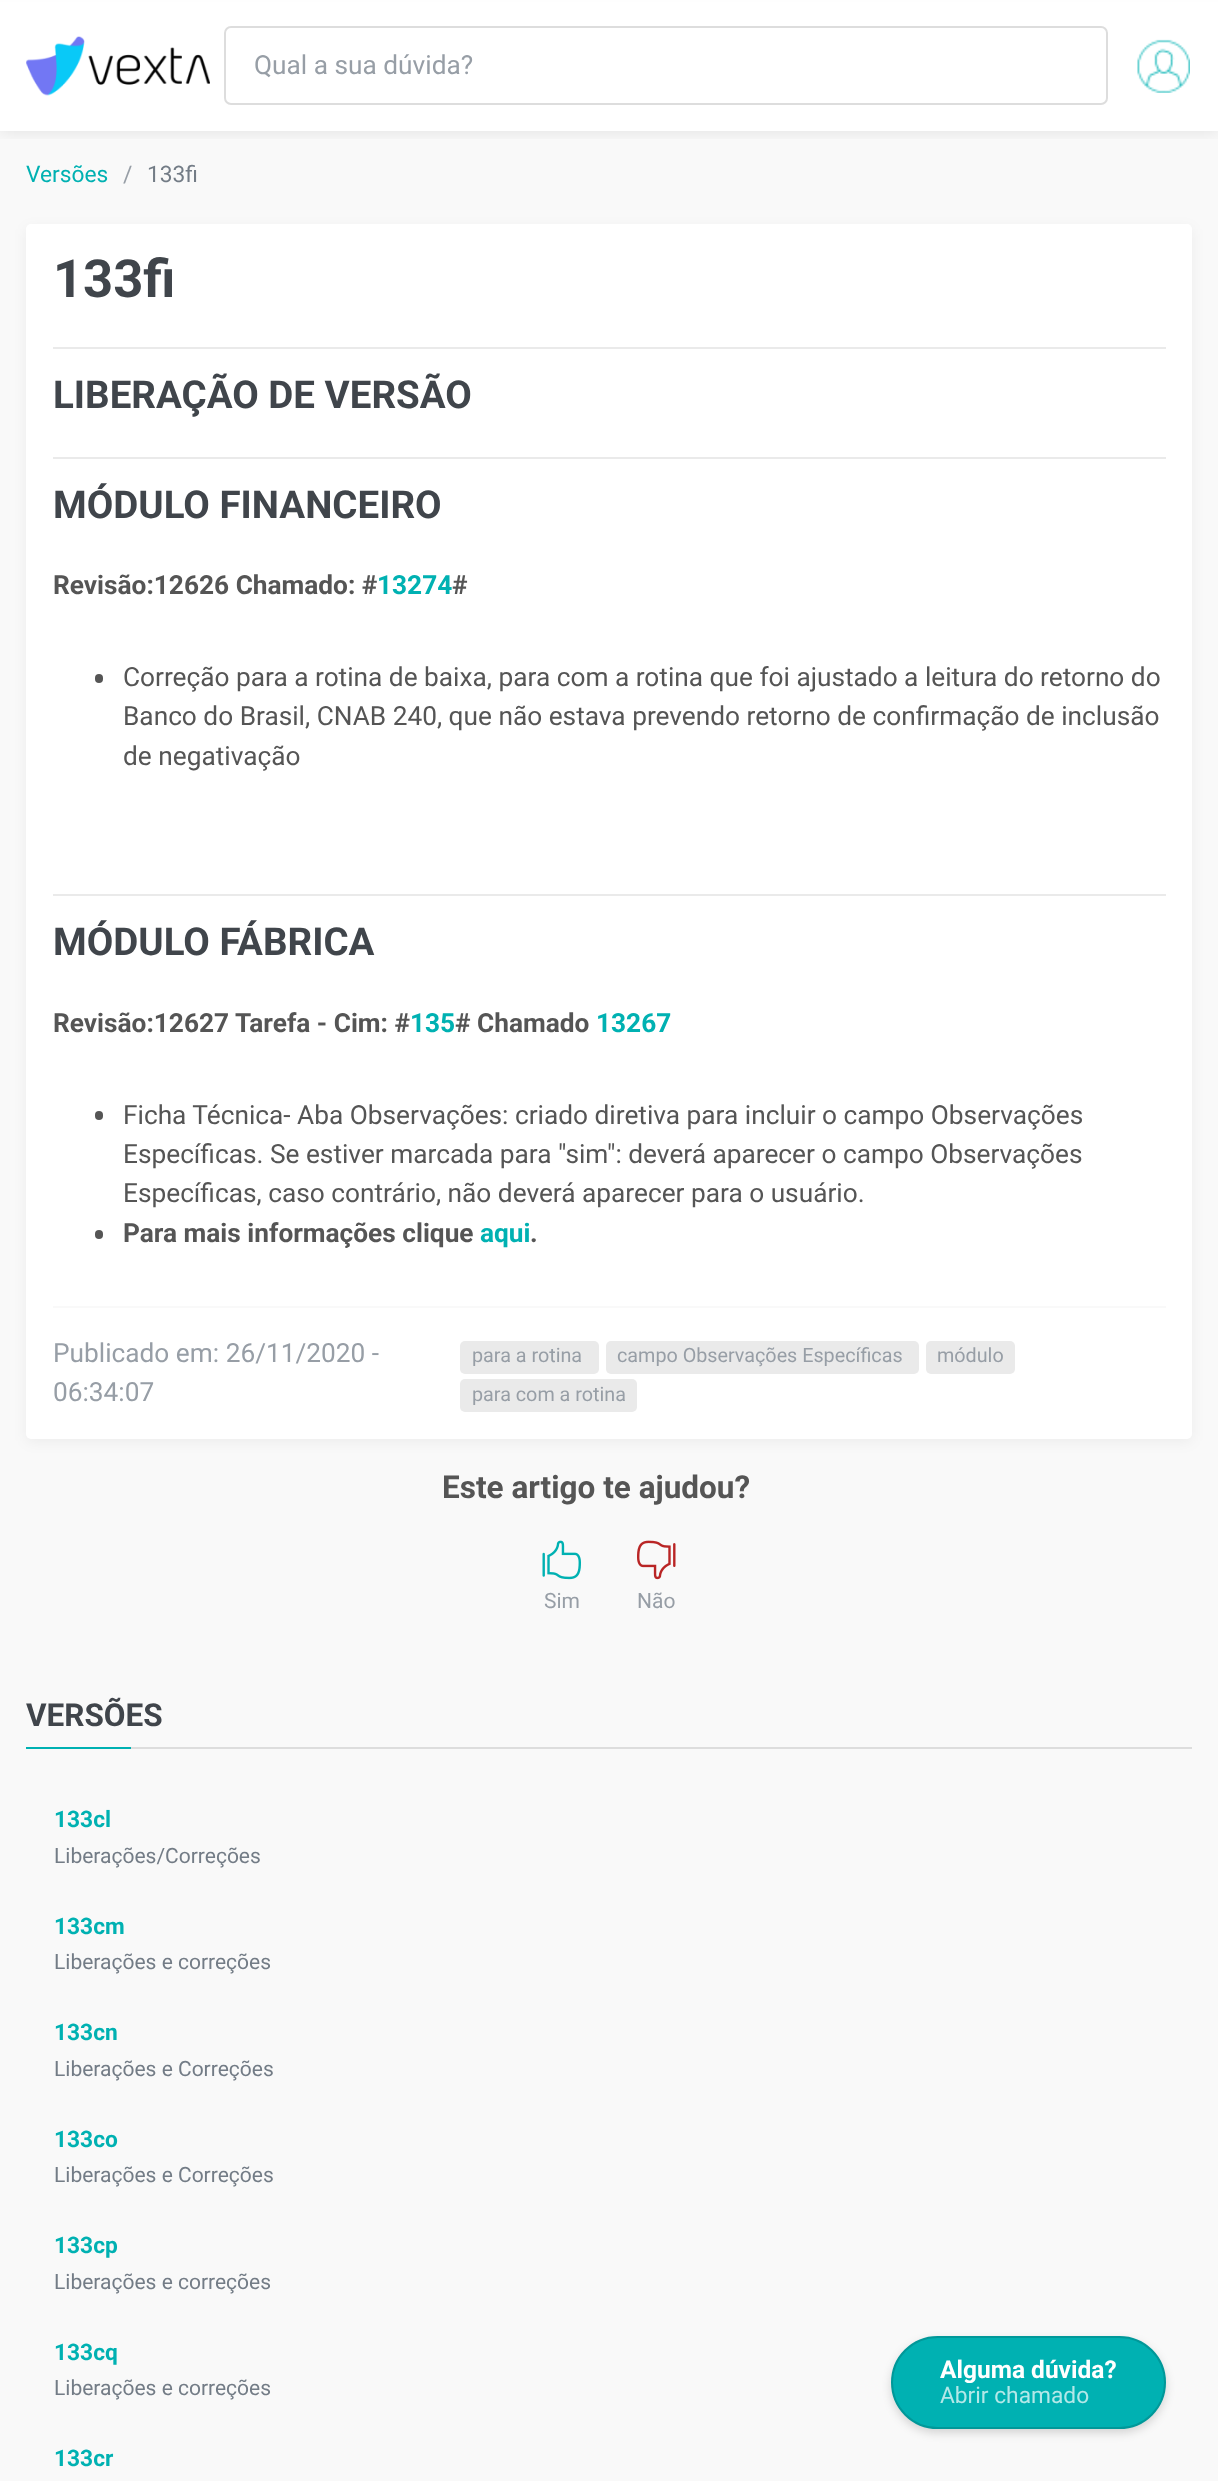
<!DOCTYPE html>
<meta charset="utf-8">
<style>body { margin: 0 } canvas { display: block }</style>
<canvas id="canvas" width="1218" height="2481"></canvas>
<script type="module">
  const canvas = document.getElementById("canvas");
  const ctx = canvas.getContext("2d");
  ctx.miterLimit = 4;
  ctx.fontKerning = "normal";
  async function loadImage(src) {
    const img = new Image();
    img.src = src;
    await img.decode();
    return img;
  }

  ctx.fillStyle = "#f9f9f9";
  ctx.fillRect(0, 0, 1218, 2481);
  ctx.fillStyle = "#ffffff";
  ctx.fillRect(0, 2, 1218, 129);
  ctx.fillStyle = "#fefefe";
  ctx.fillRect(0, 0, 1218, 2);
  ctx.save();
  ctx.beginPath();
  ctx.rect(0, 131, 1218, 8);
  ctx.clip();
  ctx.fillStyle = "rgba(0, 0, 0, 0.1)";
  ctx.filter = "blur(9px)";
  ctx.beginPath();
  ctx.rect(0, 0, 1218, 131);
  ctx.fill();
  ctx.filter = "none";
  ctx.restore();
  ctx.drawImage(await loadImage("img1.png"), 26, 36, 184, 60);
  ctx.beginPath();
  ctx.roundRect(225, 27, 882, 77, 6);
  ctx.strokeStyle = "#dddddd";
  ctx.lineWidth = 2;
  ctx.stroke();
  ctx.font = "26.25px Roboto";
  ctx.fillStyle = "#979ea6";
  ctx.fillText("Qual a sua dúvida?", 254, 74);
  ctx.drawImage(await loadImage("img2.png"), 1137, 39, 53, 54);
  ctx.font = "22.75px Roboto";
  ctx.fillStyle = "#00b1b2";
  ctx.fillText("Versões", 26, 182);
  ctx.fillStyle = "#979ea6";
  ctx.fillText("/", 123, 182);
  ctx.fillStyle = "#737c86";
  ctx.fillText("133fi", 147, 182);
  ctx.fillStyle = "rgba(0, 0, 0, 0.05)";
  ctx.filter = "blur(7px)";
  ctx.beginPath();
  ctx.roundRect(26, 228, 1166, 1214, 5);
  ctx.fill();
  ctx.filter = "none";
  ctx.fillStyle = "#ffffff";
  ctx.beginPath();
  ctx.roundRect(26, 224, 1166, 1215, 5);
  ctx.fill();
  ctx.font = "bold 52.5px Roboto";
  ctx.fillStyle = "#40454b";
  ctx.fillText("133fi", 53, 297);
  ctx.fillStyle = "#eaeaea";
  ctx.fillRect(53, 347, 1113, 2);
  ctx.font = "bold 38.5px Roboto";
  ctx.fillStyle = "#40454b";
  ctx.fillText("LIBERAÇÃO DE VERSÃO", 53, 408);
  ctx.fillStyle = "#eaeaea";
  ctx.fillRect(53, 457, 1113, 2);
  ctx.fillStyle = "#40454b";
  ctx.fillText("MÓDULO FINANCEIRO", 53, 518);
  ctx.font = "bold 26.25px Roboto";
  ctx.fillStyle = "#555555";
  ctx.fillText("Revisão:12626 Chamado: #", 53, 594);
  ctx.fillStyle = "#00b1b2";
  ctx.fillText("13274", 377, 594);
  ctx.fillStyle = "#555555";
  ctx.fillText("#", 452, 594);
  ctx.beginPath();
  ctx.roundRect(95, 674, 8, 9, 4);
  ctx.fill();
  ctx.font = "26.25px Roboto";
  ctx.fillText("Correção para a rotina de baixa, para com a rotina que foi ajustado a leitura do retorno do", 123, 686);
  ctx.fillText("Banco do Brasil, CNAB 240, que não estava prevendo retorno de confirmação de inclusão", 123, 725);
  ctx.fillText("de negativação", 123, 765);
  ctx.fillStyle = "#eaeaea";
  ctx.fillRect(53, 894, 1113, 2);
  ctx.font = "bold 38.5px Roboto";
  ctx.fillStyle = "#40454b";
  ctx.fillText("MÓDULO FÁBRICA", 53, 955);
  ctx.font = "bold 26.25px Roboto";
  ctx.fillStyle = "#555555";
  ctx.fillText("Revisão:12627 Tarefa - Cim: #", 53, 1032);
  ctx.fillStyle = "#00b1b2";
  ctx.fillText("135", 410, 1032);
  ctx.fillStyle = "#555555";
  ctx.fillText("# Chamado", 455, 1032);
  ctx.fillStyle = "#00b1b2";
  ctx.fillText("13267", 596, 1032);
  ctx.fillStyle = "#555555";
  ctx.beginPath();
  ctx.roundRect(95, 1111, 8, 9, 4);
  ctx.fill();
  ctx.font = "26.25px Roboto";
  ctx.fillText("Ficha Técnica- Aba Observações: criado diretiva para incluir o campo Observações", 123, 1124);
  ctx.fillText("Específicas. Se estiver marcada para \"sim\": deverá aparecer o campo Observações", 123, 1163);
  ctx.fillText("Específicas, caso contrário, não deverá aparecer para o usuário.", 123, 1202);
  ctx.beginPath();
  ctx.roundRect(95, 1230, 8, 9, 4);
  ctx.fill();
  ctx.font = "bold 26.25px Roboto";
  ctx.fillText("Para mais informações clique", 123, 1242);
  ctx.fillStyle = "#00b1b2";
  ctx.fillText("aqui", 480, 1242);
  ctx.fillStyle = "#555555";
  ctx.fillText(".", 530, 1242);
  ctx.fillStyle = "#f9f9f9";
  ctx.fillRect(53, 1306, 1113, 2);
  ctx.font = "26.25px Roboto";
  ctx.fillStyle = "#979ea6";
  ctx.fillText("Publicado em: 26/11/2020 -", 53, 1362);
  ctx.fillText("06:34:07", 53, 1401);
  ctx.fillStyle = "#eaeaea";
  ctx.beginPath();
  ctx.roundRect(460, 1341, 139, 33, 5);
  ctx.fill();
  ctx.font = "19.75px Roboto";
  ctx.fillStyle = "#979ea6";
  ctx.fillText("para a rotina", 472, 1362);
  ctx.fillStyle = "#eaeaea";
  ctx.beginPath();
  ctx.roundRect(606, 1341, 313, 33, 5);
  ctx.fill();
  ctx.fillStyle = "#979ea6";
  ctx.fillText("campo Observações Específicas", 617, 1362);
  ctx.fillStyle = "#eaeaea";
  ctx.beginPath();
  ctx.roundRect(926, 1341, 89, 33, 5);
  ctx.fill();
  ctx.fillStyle = "#979ea6";
  ctx.fillText("módulo", 937, 1362);
  ctx.fillStyle = "#eaeaea";
  ctx.beginPath();
  ctx.roundRect(460, 1379, 177, 33, 5);
  ctx.fill();
  ctx.fillStyle = "#979ea6";
  ctx.fillText("para com a rotina", 472, 1401);
  ctx.font = "bold 31.5px Roboto";
  ctx.fillStyle = "#555555";
  ctx.fillText("Este artigo te ajudou?", 442, 1498);
  ctx.drawImage(await loadImage("img3.png"), 542, 1540, 39, 40);
  ctx.font = "21px Roboto";
  ctx.fillStyle = "#979ea6";
  ctx.fillText("Sim", 544, 1608);
  ctx.drawImage(await loadImage("img4.png"), 637, 1540, 39, 40);
  ctx.fillText("Não", 637, 1608);
  ctx.fillStyle = "#dddddd";
  ctx.fillRect(131, 1747, 1061, 2);
  ctx.font = "bold 31.5px Roboto";
  ctx.fillStyle = "#40454b";
  ctx.fillText("VERSÕES", 26, 1726);
  ctx.fillStyle = "#00b1b2";
  ctx.fillRect(26, 1747, 105, 2);
  ctx.font = "bold 22.75px Roboto";
  ctx.fillText("133cl", 54, 1827);
  ctx.font = "21px Roboto";
  ctx.fillStyle = "#737c86";
  ctx.fillText("Liberações/Correções", 54, 1863);
  ctx.font = "bold 22.75px Roboto";
  ctx.fillStyle = "#00b1b2";
  ctx.fillText("133cm", 54, 1934);
  ctx.font = "21px Roboto";
  ctx.fillStyle = "#737c86";
  ctx.fillText("Liberações e correções", 54, 1969);
  ctx.font = "bold 22.75px Roboto";
  ctx.fillStyle = "#00b1b2";
  ctx.fillText("133cn", 54, 2040);
  ctx.font = "21px Roboto";
  ctx.fillStyle = "#737c86";
  ctx.fillText("Liberações e Correções", 54, 2076);
  ctx.font = "bold 22.75px Roboto";
  ctx.fillStyle = "#00b1b2";
  ctx.fillText("133co", 54, 2147);
  ctx.font = "21px Roboto";
  ctx.fillStyle = "#737c86";
  ctx.fillText("Liberações e Correções", 54, 2182);
  ctx.font = "bold 22.75px Roboto";
  ctx.fillStyle = "#00b1b2";
  ctx.fillText("133cp", 54, 2253);
  ctx.font = "21px Roboto";
  ctx.fillStyle = "#737c86";
  ctx.fillText("Liberações e correções", 54, 2289);
  ctx.font = "bold 22.75px Roboto";
  ctx.fillStyle = "#00b1b2";
  ctx.fillText("133cq", 54, 2360);
  ctx.font = "21px Roboto";
  ctx.fillStyle = "#737c86";
  ctx.fillText("Liberações e correções", 54, 2395);
  ctx.font = "bold 22.75px Roboto";
  ctx.fillStyle = "#00b1b2";
  ctx.fillText("133cr", 54, 2466);
  ctx.fillStyle = "rgba(0, 0, 0, 0.15)";
  ctx.filter = "blur(5px)";
  ctx.beginPath();
  ctx.roundRect(891, 2340, 275, 93, 46.5);
  ctx.fill();
  ctx.filter = "none";
  ctx.fillStyle = "#00b1b2";
  ctx.beginPath();
  ctx.roundRect(892, 2337, 273, 91, 45.5);
  ctx.fill();
  ctx.strokeStyle = "#009899";
  ctx.stroke();
  ctx.font = "bold 24.5px Roboto";
  ctx.fillStyle = "#ffffff";
  ctx.fillText("Alguma dúvida?", 940, 2378);
  ctx.font = "22.75px Roboto";
  ctx.fillStyle = "#b3e8e8";
  ctx.fillText("Abrir chamado", 940, 2403);
</script>
